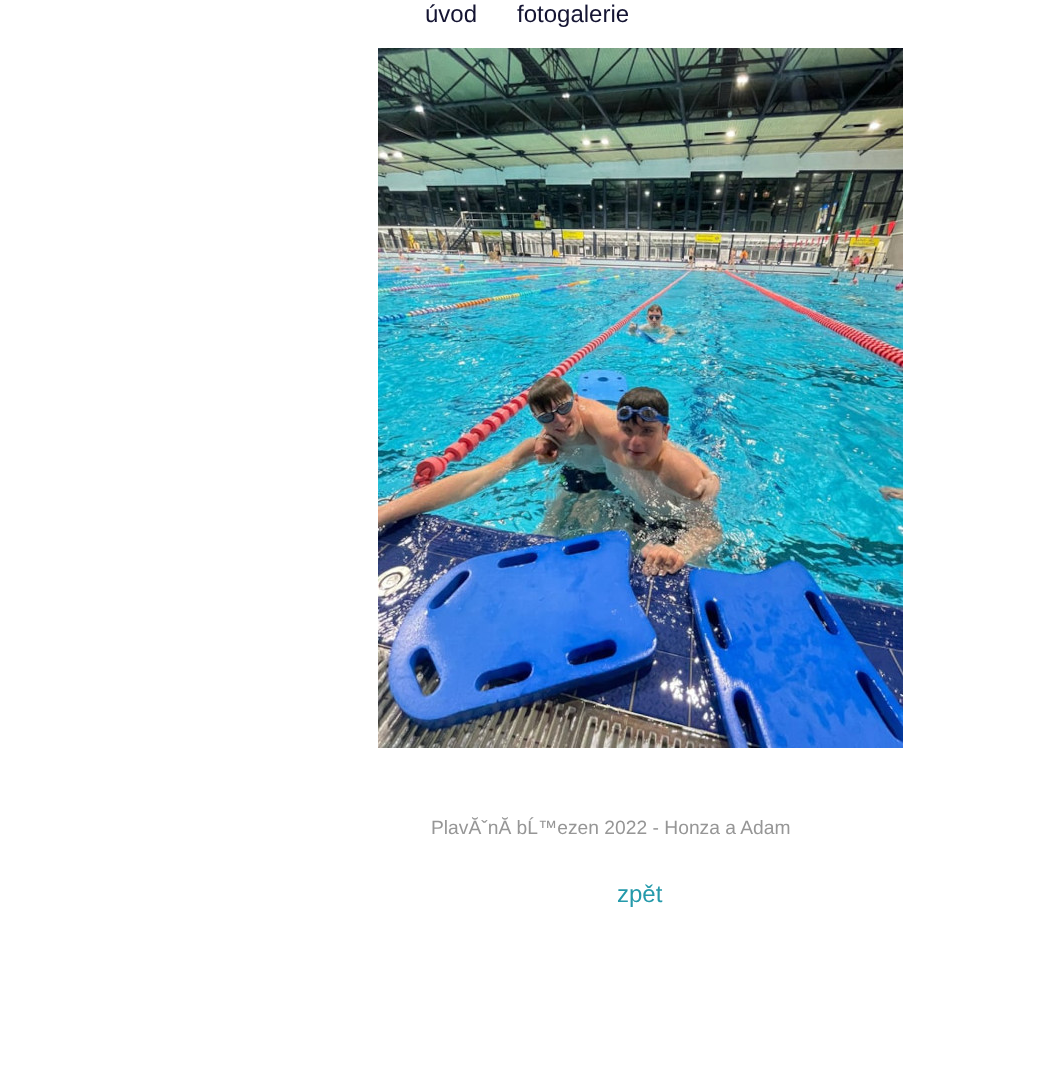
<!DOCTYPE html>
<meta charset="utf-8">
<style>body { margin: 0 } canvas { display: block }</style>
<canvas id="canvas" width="1055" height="1069"></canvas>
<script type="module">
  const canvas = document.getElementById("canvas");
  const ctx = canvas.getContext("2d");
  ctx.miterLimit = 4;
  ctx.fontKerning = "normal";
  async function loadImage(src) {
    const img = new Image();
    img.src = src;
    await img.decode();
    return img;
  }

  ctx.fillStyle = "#ffffff";
  ctx.fillRect(0, 0, 1055, 1069);
  ctx.font = "24px Liberation Sans";
  ctx.fillStyle = "#141432";
  ctx.fillText("úvod", 425, 22);
  ctx.fillText("fotogalerie", 517, 22);
  ctx.drawImage(await loadImage("img1.png"), 378, 48, 525, 700);
  ctx.font = "19.25px Liberation Sans";
  ctx.fillStyle = "#969696";
  ctx.fillText("PlavĂˇnĂ bĹ™ezen 2022 - Honza a Adam", 431, 834);
  ctx.font = "24px Liberation Sans";
  ctx.fillStyle = "#259aab";
  ctx.fillText("zpět", 617, 902);
</script>
